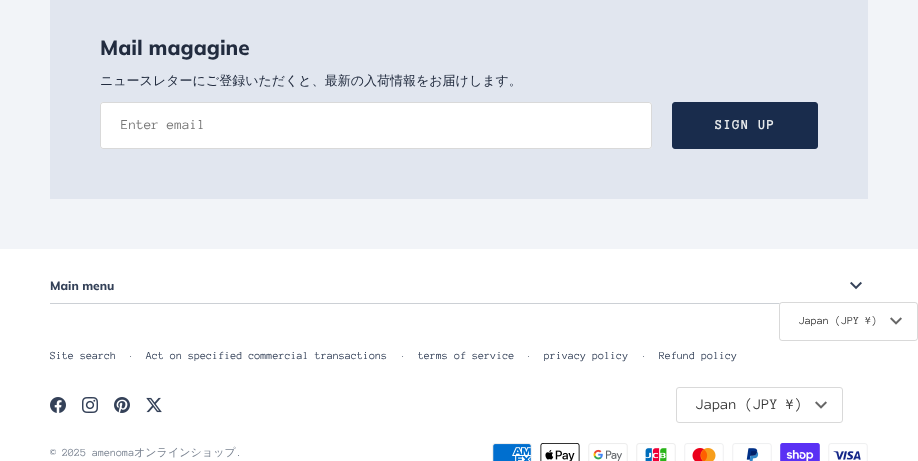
<!DOCTYPE html>
<meta charset="utf-8">
<style>body { margin: 0 } canvas { display: block }</style>
<canvas id="canvas" width="918" height="461"></canvas>
<script type="module">
  const canvas = document.getElementById("canvas");
  const ctx = canvas.getContext("2d");
  ctx.miterLimit = 4;
  ctx.fontKerning = "normal";
  async function loadImage(src) {
    const img = new Image();
    img.src = src;
    await img.decode();
    return img;
  }

  ctx.fillStyle = "#f2f4f8";
  ctx.fillRect(0, 0, 918, 461);
  ctx.fillStyle = "#e1e6ef";
  ctx.fillRect(50, 0, 818, 199);
  ctx.font = "800 20.75px Muli";
  ctx.fillStyle = "#222c3f";
  ctx.fillText("Mail magagine", 100, 55);
  ctx.font = "500 13px WenQuanYi Zen Hei";
  ctx.fillText("ニュースレターにご登録いただくと、最新の入荷情報をお届けします。", 100, 85);
  ctx.fillStyle = "#ffffff";
  ctx.beginPath();
  ctx.roundRect(100, 102, 552, 47, 3);
  ctx.fill();
  ctx.beginPath();
  ctx.roundRect(100.5, 102.5, 551, 46, 2.5);
  ctx.strokeStyle = "rgba(0, 0, 0, 0.15)";
  ctx.stroke();
  ctx.font = "14px Anonymous Pro";
  ctx.fillStyle = "#757575";
  ctx.fillText("Enter email", 121, 129);
  ctx.fillStyle = "#192c4c";
  ctx.beginPath();
  ctx.roundRect(672.5, 102.5, 145, 46, 2.5);
  ctx.fill();
  ctx.strokeStyle = "#192c4c";
  ctx.stroke();
  ctx.letterSpacing = "1px";
  ctx.font = "bold 14px Anonymous Pro";
  ctx.fillStyle = "#e6e9ea";
  ctx.fillText("SIGN UP", 715, 129);
  ctx.fillStyle = "#ffffff";
  ctx.fillRect(0, 249, 918, 212);
  ctx.fillStyle = "#ccd0d5";
  ctx.fillRect(50, 303, 730, 1);
  ctx.letterSpacing = "0px";
  ctx.font = "800 12px Muli";
  ctx.fillStyle = "#344158";
  ctx.fillText("Main menu", 50, 290);
  ctx.drawImage(await loadImage("img1.png"), 850, 281, 12, 9);
  ctx.font = "11.05px Anonymous Pro";
  ctx.fillText("Site search", 50, 359);
  ctx.fillStyle = "#7b8492";
  ctx.fillText("·", 128, 359);
  ctx.fillStyle = "#344158";
  ctx.fillText("Act on specified commercial transactions", 146, 359);
  ctx.fillStyle = "#7b8492";
  ctx.fillText("·", 400, 359);
  ctx.fillStyle = "#344158";
  ctx.fillText("terms of service", 418, 359);
  ctx.fillStyle = "#7b8492";
  ctx.fillText("·", 526, 359);
  ctx.fillStyle = "#344158";
  ctx.fillText("privacy policy", 544, 359);
  ctx.fillStyle = "#7b8492";
  ctx.fillText("·", 641, 359);
  ctx.fillStyle = "#344158";
  ctx.fillText("Refund policy", 659, 359);
  ctx.drawImage(await loadImage("img2.png"), 50, 397, 16, 16);
  ctx.drawImage(await loadImage("img3.png"), 82, 397, 16, 16);
  ctx.drawImage(await loadImage("img4.png"), 114, 397, 16, 16);
  ctx.drawImage(await loadImage("img5.png"), 146, 397, 16, 16);
  ctx.beginPath();
  ctx.roundRect(676.5, 387.5, 166, 35, 2.5);
  ctx.strokeStyle = "#d9d9d9";
  ctx.stroke();
  ctx.font = "15px Anonymous Pro";
  ctx.fillStyle = "#333333";
  ctx.fillText("Japan (JPY ¥)", 696, 409);
  ctx.drawImage(await loadImage("img6.png"), 815, 401, 12, 8);
  ctx.font = "11.05px Anonymous Pro";
  ctx.fillStyle = "#7b8492";
  ctx.fillText("© 2025 amenoma", 50, 456);
  ctx.font = "500 11.05px WenQuanYi Zen Hei";
  ctx.fillText("オンラインショップ", 134, 456);
  ctx.font = "11.05px Anonymous Pro";
  ctx.fillText(".", 236, 456);
  ctx.drawImage(await loadImage("img7.png"), 492, 443, 40, 18);
  ctx.drawImage(await loadImage("img8.png"), 540, 443, 40, 18);
  ctx.drawImage(await loadImage("img9.png"), 588, 443, 40, 18);
  ctx.drawImage(await loadImage("img10.png"), 636, 443, 40, 18);
  ctx.drawImage(await loadImage("img11.png"), 684, 443, 40, 18);
  ctx.drawImage(await loadImage("img12.png"), 732, 443, 40, 18);
  ctx.drawImage(await loadImage("img13.png"), 780, 443, 40, 18);
  ctx.drawImage(await loadImage("img14.png"), 828, 443, 40, 18);
  ctx.fillStyle = "#ffffff";
  ctx.beginPath();
  ctx.roundRect(779, 302, 139, 39, 3);
  ctx.fill();
  ctx.beginPath();
  ctx.roundRect(779.5, 302.5, 138, 38, 2.5);
  ctx.strokeStyle = "rgba(0, 0, 0, 0.15)";
  ctx.stroke();
  ctx.fillStyle = "#333333";
  ctx.fillText("Japan (JPY ¥)", 799, 324);
  ctx.drawImage(await loadImage("img15.png"), 890, 317, 12, 8);
</script>
